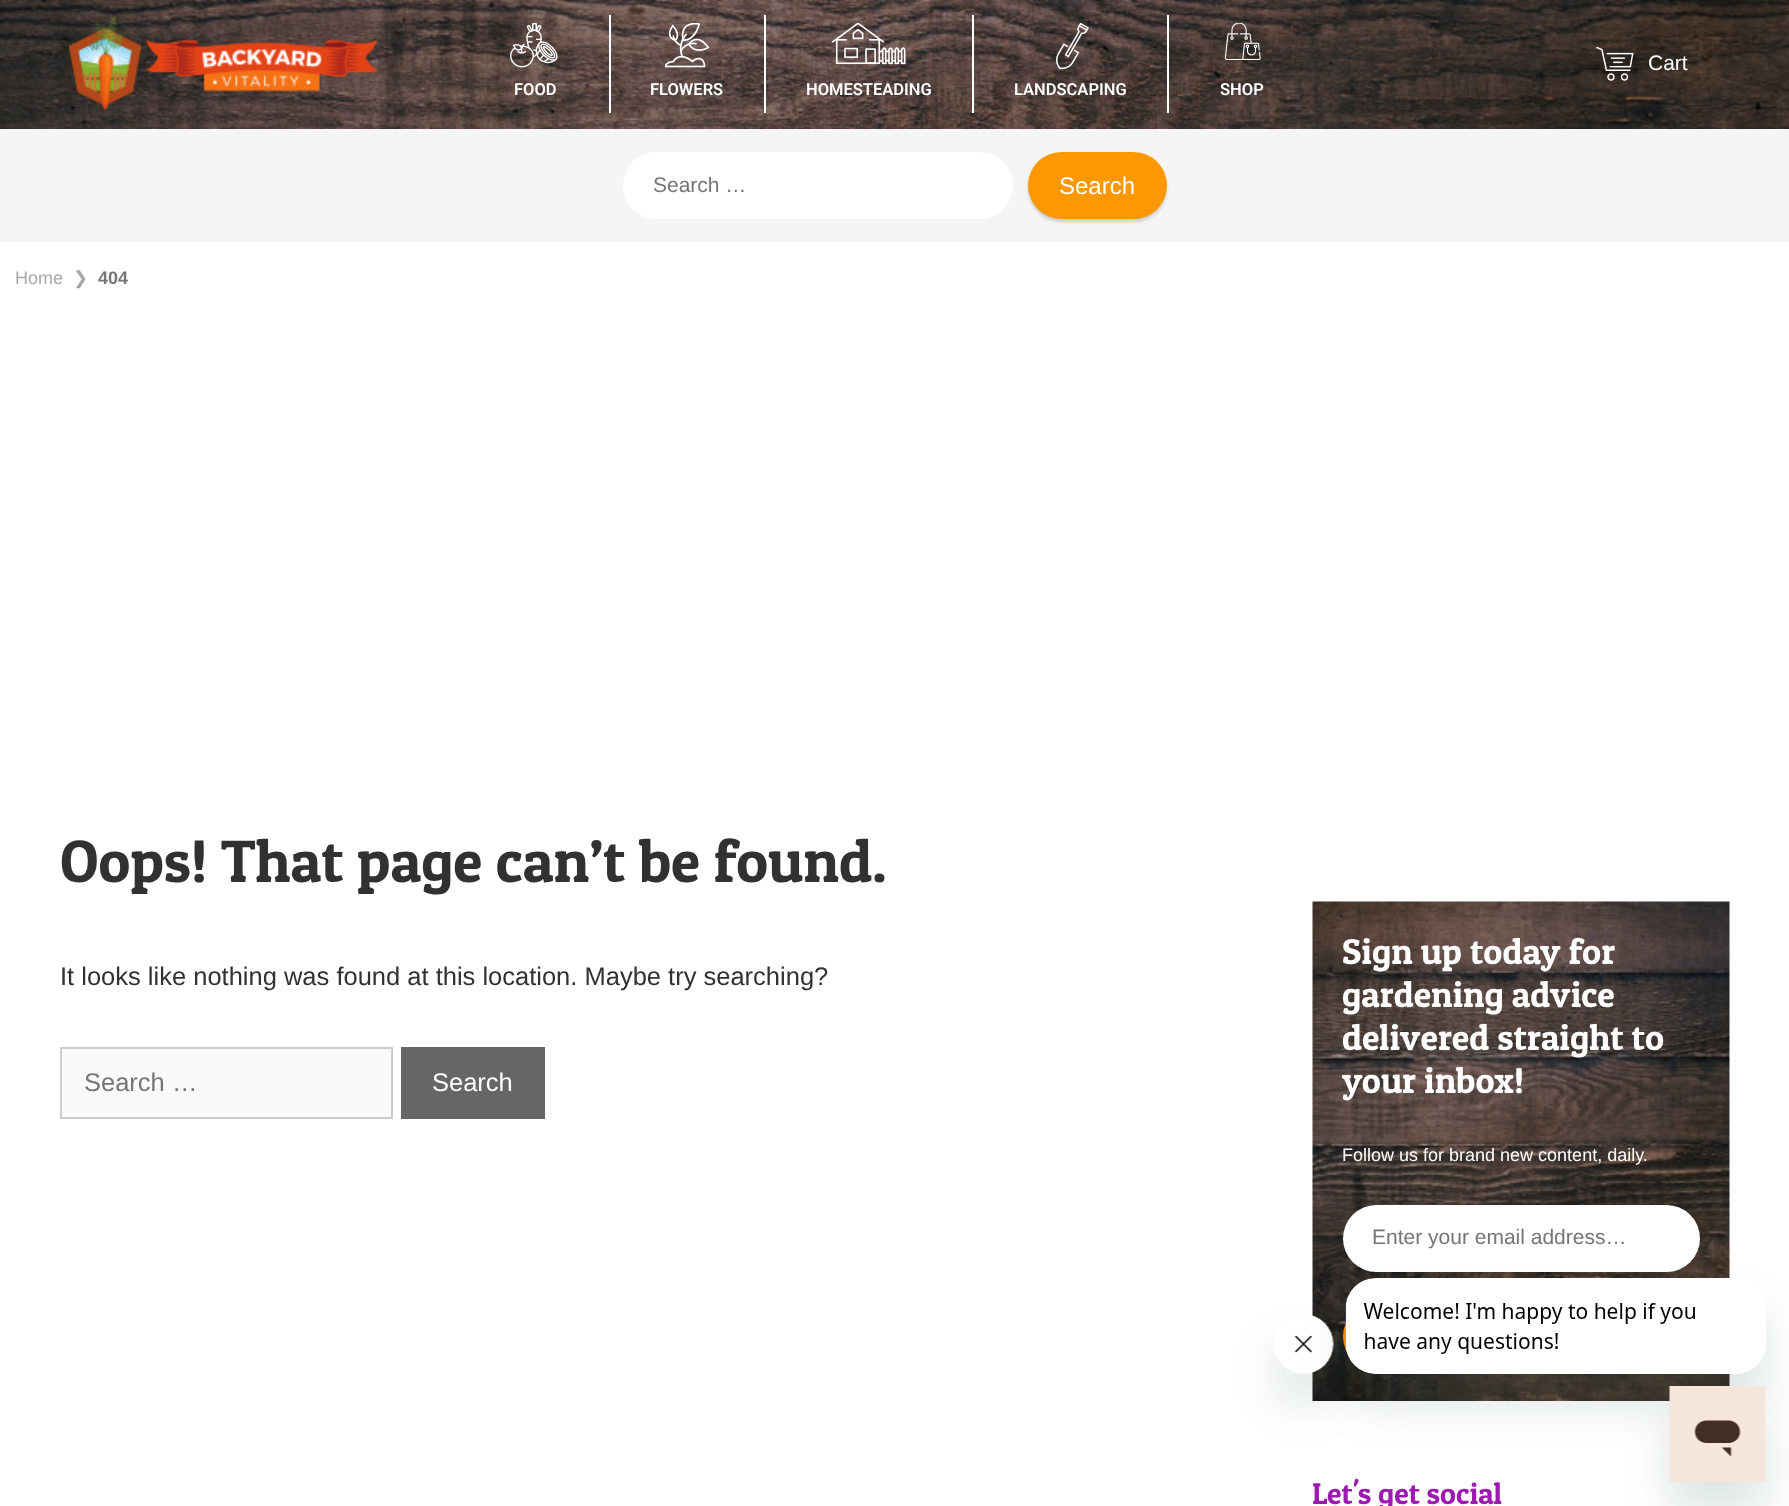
<!DOCTYPE html>
<meta charset="utf-8">
<style>body { margin: 0 } canvas { display: block }</style>
<canvas id="canvas" width="1789" height="1506"></canvas>
<script type="module">
  const canvas = document.getElementById("canvas");
  const ctx = canvas.getContext("2d");
  ctx.miterLimit = 4;
  ctx.fontKerning = "normal";
  async function loadImage(src) {
    const img = new Image();
    img.src = src;
    await img.decode();
    return img;
  }

  ctx.fillStyle = "#ffffff";
  ctx.fillRect(0, 0, 1789, 1506);
  ctx.drawImage(await loadImage("img1.png"), 0, 0, 1789, 129);
  ctx.drawImage(await loadImage("img2.png"), 68, 15, 311, 96);
  ctx.drawImage(await loadImage("img3.png"), 1596, 47, 38, 34);
  ctx.font = "21px Liberation Sans";
  ctx.fillText("Cart", 1648, 70);
  ctx.fillRect(609, 15, 2, 98);
  ctx.drawImage(await loadImage("img4.png"), 510, 23, 48, 45);
  ctx.font = "600 16.5px Roboto";
  ctx.fillText("FOOD", 514, 95);
  ctx.fillRect(764, 15, 2, 98);
  ctx.drawImage(await loadImage("img5.png"), 665, 23, 45, 45);
  ctx.fillText("FLOWERS", 650, 95);
  ctx.fillRect(972, 15, 2, 98);
  ctx.drawImage(await loadImage("img6.png"), 831, 23, 75, 42);
  ctx.fillText("HOMESTEADING", 806, 95);
  ctx.fillRect(1167, 15, 2, 98);
  ctx.drawImage(await loadImage("img7.png"), 1056, 23, 33, 47);
  ctx.fillText("LANDSCAPING", 1014, 95);
  ctx.drawImage(await loadImage("img8.png"), 1224, 23, 37, 37);
  ctx.fillText("SHOP", 1220, 95);
  ctx.fillStyle = "#f5f5f5";
  ctx.fillRect(0, 129, 1789, 113);
  ctx.fillStyle = "#ffffff";
  ctx.beginPath();
  ctx.roundRect(623, 152, 390, 67, 33.5);
  ctx.fill();
  ctx.font = "21px Liberation Sans";
  ctx.fillStyle = "#757575";
  ctx.fillText("Search …", 653, 192);
  ctx.fillStyle = "rgba(0, 0, 0, 0.16)";
  ctx.filter = "blur(1.5px)";
  ctx.beginPath();
  ctx.roundRect(1028, 155, 139, 67, 33.5);
  ctx.fill();
  ctx.filter = "none";
  ctx.fillStyle = "#ff9800";
  ctx.beginPath();
  ctx.roundRect(1028, 152, 139, 67, 33.5);
  ctx.fill();
  ctx.font = "24px Liberation Sans";
  ctx.fillStyle = "#ffffff";
  ctx.fillText("Search", 1059, 194);
  ctx.font = "18px Liberation Sans";
  ctx.fillStyle = "#a8a8a8";
  ctx.fillText("Home", 15, 284);
  ctx.font = "18px DejaVu Sans";
  ctx.fillText("❯", 73, 284);
  ctx.font = "bold 18px Liberation Sans";
  ctx.fillStyle = "#757575";
  ctx.fillText("404", 98, 284);
  ctx.font = "60px Patua One";
  ctx.fillStyle = "#313131";
  ctx.fillText("Oops! That page can’t be found.", 60, 882);
  ctx.font = "25.5px Liberation Sans";
  ctx.fillText("It looks like nothing was found at this location. Maybe try searching?", 60, 985);
  ctx.fillStyle = "#fafafa";
  ctx.beginPath();
  ctx.rect(61, 1048, 331, 70);
  ctx.fill();
  ctx.strokeStyle = "#cccccc";
  ctx.lineWidth = 2;
  ctx.stroke();
  ctx.fillStyle = "#757575";
  ctx.fillText("Search …", 84, 1091);
  ctx.fillStyle = "#666666";
  ctx.fillRect(401, 1047, 144, 72);
  ctx.fillStyle = "#ffffff";
  ctx.fillText("Search", 432, 1091);
  ctx.drawImage(await loadImage("img9.png"), 1312, 901, 418, 500);
  ctx.font = "36px Patua One";
  ctx.fillText("Sign up today for", 1342, 964);
  ctx.fillText("gardening advice", 1342, 1007);
  ctx.fillText("delivered straight to", 1342, 1050);
  ctx.fillText("your inbox!", 1342, 1093);
  ctx.font = "18px Liberation Sans";
  ctx.fillText("Follow us for brand new content, daily.", 1342, 1161);
  ctx.beginPath();
  ctx.roundRect(1343, 1205, 357, 67, 33.5);
  ctx.fill();
  ctx.font = "21px Liberation Sans";
  ctx.fillStyle = "#757575";
  ctx.fillText("Enter your email address…", 1372, 1244);
  ctx.fillStyle = "rgba(0, 0, 0, 0.16)";
  ctx.filter = "blur(1.5px)";
  ctx.beginPath();
  ctx.roundRect(1343, 1305, 148, 69, 34.5);
  ctx.fill();
  ctx.filter = "none";
  ctx.fillStyle = "#ff9800";
  ctx.beginPath();
  ctx.roundRect(1343, 1302, 148, 69, 34.5);
  ctx.fill();
  ctx.font = "30px Patua One";
  ctx.fillStyle = "#9d1ab1";
  ctx.fillText("Let's get social", 1312, 1504);
  ctx.save();
  ctx.beginPath();
  ctx.moveTo(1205, 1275);
  ctx.lineTo(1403, 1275);
  ctx.lineTo(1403, 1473);
  ctx.lineTo(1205, 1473);
  ctx.closePath();
  ctx.moveTo(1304, 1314);
  ctx.bezierCurveTo(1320.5, 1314, 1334, 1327.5, 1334, 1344);
  ctx.bezierCurveTo(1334, 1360.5, 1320.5, 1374, 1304, 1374);
  ctx.bezierCurveTo(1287.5, 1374, 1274, 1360.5, 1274, 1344);
  ctx.bezierCurveTo(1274, 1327.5, 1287.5, 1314, 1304, 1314);
  ctx.closePath();
  ctx.clip("evenodd");
  ctx.fillStyle = "rgba(23, 73, 77, 0.15)";
  ctx.filter = "blur(22.5px)";
  ctx.beginPath();
  ctx.roundRect(1274, 1344, 60, 60, 30);
  ctx.fill();
  ctx.filter = "none";
  ctx.restore();
  ctx.drawImage(await loadImage("img11.png"), 1294, 1315, 40, 58);
  ctx.save();
  ctx.beginPath();
  ctx.moveTo(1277, 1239);
  ctx.lineTo(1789, 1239);
  ctx.lineTo(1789, 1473);
  ctx.lineTo(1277, 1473);
  ctx.closePath();
  ctx.moveTo(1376, 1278);
  ctx.lineTo(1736, 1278);
  ctx.bezierCurveTo(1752.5, 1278, 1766, 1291.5, 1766, 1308);
  ctx.lineTo(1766, 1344);
  ctx.bezierCurveTo(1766, 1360.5, 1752.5, 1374, 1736, 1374);
  ctx.lineTo(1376, 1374);
  ctx.bezierCurveTo(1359.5, 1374, 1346, 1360.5, 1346, 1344);
  ctx.lineTo(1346, 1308);
  ctx.bezierCurveTo(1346, 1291.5, 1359.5, 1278, 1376, 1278);
  ctx.closePath();
  ctx.clip("evenodd");
  ctx.fillStyle = "rgba(23, 73, 77, 0.15)";
  ctx.filter = "blur(22.5px)";
  ctx.beginPath();
  ctx.roundRect(1346, 1308, 420, 96, 30);
  ctx.fill();
  ctx.filter = "none";
  ctx.restore();
  ctx.drawImage(await loadImage("img10.png"), 1345, 1278, 396, 96);
  ctx.fillStyle = "rgba(23, 73, 77, 0.15)";
  ctx.filter = "blur(22.5px)";
  ctx.beginPath();
  ctx.rect(1670, 1416, 96, 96);
  ctx.fill();
  ctx.filter = "none";
  ctx.drawImage(await loadImage("img12.png"), 1669, 1386, 97, 96);
</script>
